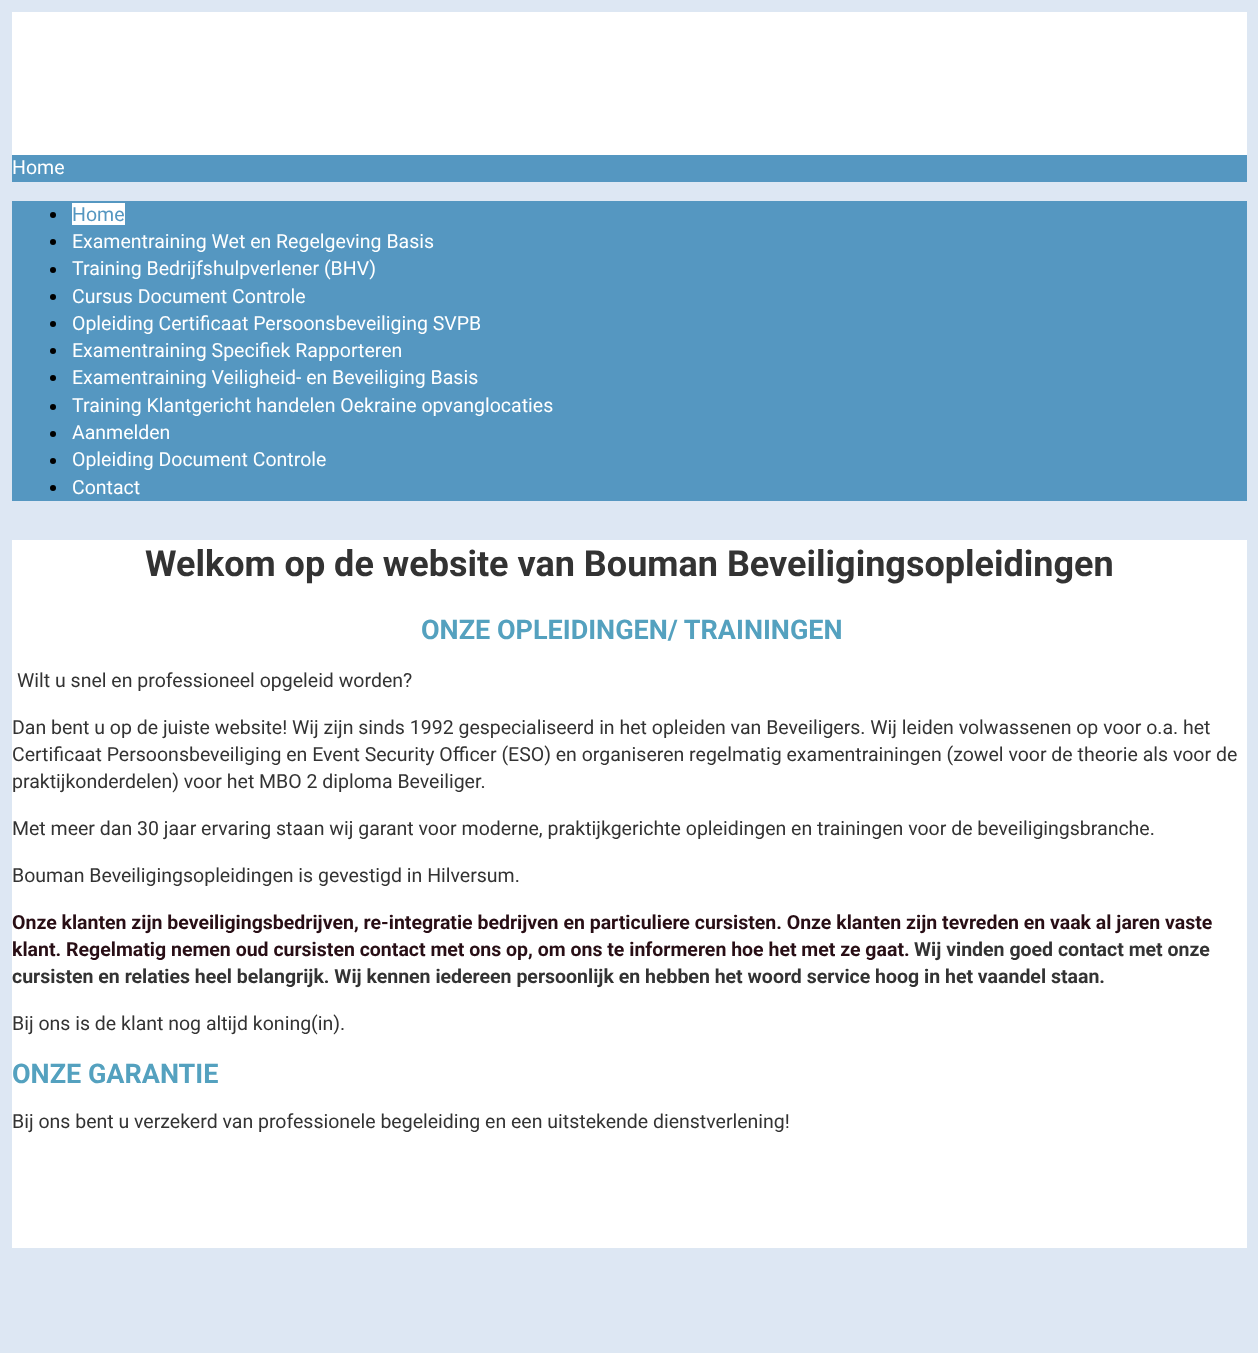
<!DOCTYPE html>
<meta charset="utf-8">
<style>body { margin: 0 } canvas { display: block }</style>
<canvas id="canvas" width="1258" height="1353"></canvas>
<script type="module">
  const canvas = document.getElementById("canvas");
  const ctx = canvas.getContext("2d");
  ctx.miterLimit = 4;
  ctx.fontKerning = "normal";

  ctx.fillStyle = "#dde7f3";
  ctx.fillRect(0, 0, 1258, 1353);
  ctx.fillStyle = "#ffffff";
  ctx.fillRect(12, 12, 1235, 143);
  ctx.fillStyle = "#5597c1";
  ctx.fillRect(12, 155, 1235, 27);
  ctx.font = "19.5px Roboto";
  ctx.fillStyle = "#ffffff";
  ctx.fillText("Home", 12, 174);
  ctx.fillStyle = "#5597c1";
  ctx.fillRect(12, 201, 1235, 300);
  ctx.fillStyle = "#000000";
  ctx.beginPath();
  ctx.arc(53, 215, 3, 0, Math.PI * 2);
  ctx.fill();
  ctx.fillStyle = "#ffffff";
  ctx.fillRect(72, 203, 53, 22);
  ctx.fillStyle = "#5597c1";
  ctx.fillText("Home", 72, 221);
  ctx.fillStyle = "#000000";
  ctx.beginPath();
  ctx.arc(53, 242, 3, 0, Math.PI * 2);
  ctx.fill();
  ctx.fillStyle = "#ffffff";
  ctx.fillText("Examentraining Wet en Regelgeving Basis", 72, 248);
  ctx.fillStyle = "#000000";
  ctx.beginPath();
  ctx.arc(53, 270, 3, 0, Math.PI * 2);
  ctx.fill();
  ctx.fillStyle = "#ffffff";
  ctx.fillText("Training Bedrijfshulpverlener (BHV)", 72, 275);
  ctx.fillStyle = "#000000";
  ctx.beginPath();
  ctx.arc(53, 297, 3, 0, Math.PI * 2);
  ctx.fill();
  ctx.fillStyle = "#ffffff";
  ctx.fillText("Cursus Document Controle", 72, 303);
  ctx.fillStyle = "#000000";
  ctx.beginPath();
  ctx.arc(53, 324, 3, 0, Math.PI * 2);
  ctx.fill();
  ctx.fillStyle = "#ffffff";
  ctx.fillText("Opleiding Certificaat Persoonsbeveiliging SVPB", 72, 330);
  ctx.fillStyle = "#000000";
  ctx.beginPath();
  ctx.arc(53, 351, 3, 0, Math.PI * 2);
  ctx.fill();
  ctx.fillStyle = "#ffffff";
  ctx.fillText("Examentraining Specifiek Rapporteren", 72, 357);
  ctx.fillStyle = "#000000";
  ctx.beginPath();
  ctx.arc(53, 378, 3, 0, Math.PI * 2);
  ctx.fill();
  ctx.fillStyle = "#ffffff";
  ctx.fillText("Examentraining Veiligheid- en Beveiliging Basis", 72, 384);
  ctx.fillStyle = "#000000";
  ctx.beginPath();
  ctx.arc(53, 407, 3, 0, Math.PI * 2);
  ctx.fill();
  ctx.fillStyle = "#ffffff";
  ctx.fillText("Training Klantgericht handelen Oekraine opvanglocaties", 72, 412);
  ctx.fillStyle = "#000000";
  ctx.beginPath();
  ctx.arc(53, 434, 3, 0, Math.PI * 2);
  ctx.fill();
  ctx.fillStyle = "#ffffff";
  ctx.fillText("Aanmelden", 72, 439);
  ctx.fillStyle = "#000000";
  ctx.beginPath();
  ctx.arc(53, 461, 3, 0, Math.PI * 2);
  ctx.fill();
  ctx.fillStyle = "#ffffff";
  ctx.fillText("Opleiding Document Controle", 72, 466);
  ctx.fillStyle = "#000000";
  ctx.beginPath();
  ctx.arc(53, 488, 3, 0, Math.PI * 2);
  ctx.fill();
  ctx.fillStyle = "#ffffff";
  ctx.fillText("Contact", 72, 494);
  ctx.fillRect(12, 540, 1235, 708);
  ctx.font = "bold 36px Roboto";
  ctx.fillStyle = "#333333";
  ctx.fillText("Welkom op de website van Bouman Beveiligingsopleidingen", 145, 576);
  ctx.font = "bold 27px Roboto";
  ctx.fillStyle = "#54a1bf";
  ctx.fillText("ONZE OPLEIDINGEN/ TRAININGEN", 421, 639);
  ctx.font = "19.5px Roboto";
  ctx.fillStyle = "#333333";
  ctx.fillText("Wilt u snel en professioneel opgeleid worden?", 17, 687);
  ctx.fillText("Dan bent u op de juiste website! Wij zijn sinds 1992 gespecialiseerd in het opleiden van Beveiligers. Wij leiden volwassenen op voor o.a. het", 12, 734);
  ctx.fillText("Certificaat Persoonsbeveiliging en Event Security Officer (ESO) en organiseren regelmatig examentrainingen (zowel voor de theorie als voor de", 12, 761);
  ctx.fillText("praktijkonderdelen) voor het MBO 2 diploma Beveiliger.", 12, 788);
  ctx.fillText("Met meer dan 30 jaar ervaring staan wij garant voor moderne, praktijkgerichte opleidingen en trainingen voor de beveiligingsbranche.", 12, 835);
  ctx.fillText("Bouman Beveiligingsopleidingen is gevestigd in Hilversum.", 12, 882);
  ctx.font = "bold 19.5px Roboto";
  ctx.fillStyle = "#280e15";
  ctx.fillText("Onze klanten zijn beveiligingsbedrijven, re-integratie bedrijven en particuliere cursisten. Onze klanten zijn tevreden en vaak al jaren vaste", 12, 929);
  ctx.fillText("klant. Regelmatig nemen oud cursisten contact met ons op, om ons te informeren hoe het met ze gaat.", 12, 956);
  ctx.fillStyle = "#333333";
  ctx.fillText("Wij vinden goed contact met onze", 914, 956);
  ctx.fillText("cursisten en relaties heel belangrijk. Wij kennen iedereen persoonlijk en hebben het woord service hoog in het vaandel staan.", 12, 983);
  ctx.font = "19.5px Roboto";
  ctx.fillText("Bij ons is de klant nog altijd koning(in).", 12, 1030);
  ctx.font = "bold 27px Roboto";
  ctx.fillStyle = "#54a1bf";
  ctx.fillText("ONZE GARANTIE", 12, 1083);
  ctx.font = "19.5px Roboto";
  ctx.fillStyle = "#333333";
  ctx.fillText("Bij ons bent u verzekerd van professionele begeleiding en een uitstekende dienstverlening!", 12, 1128);
</script>
